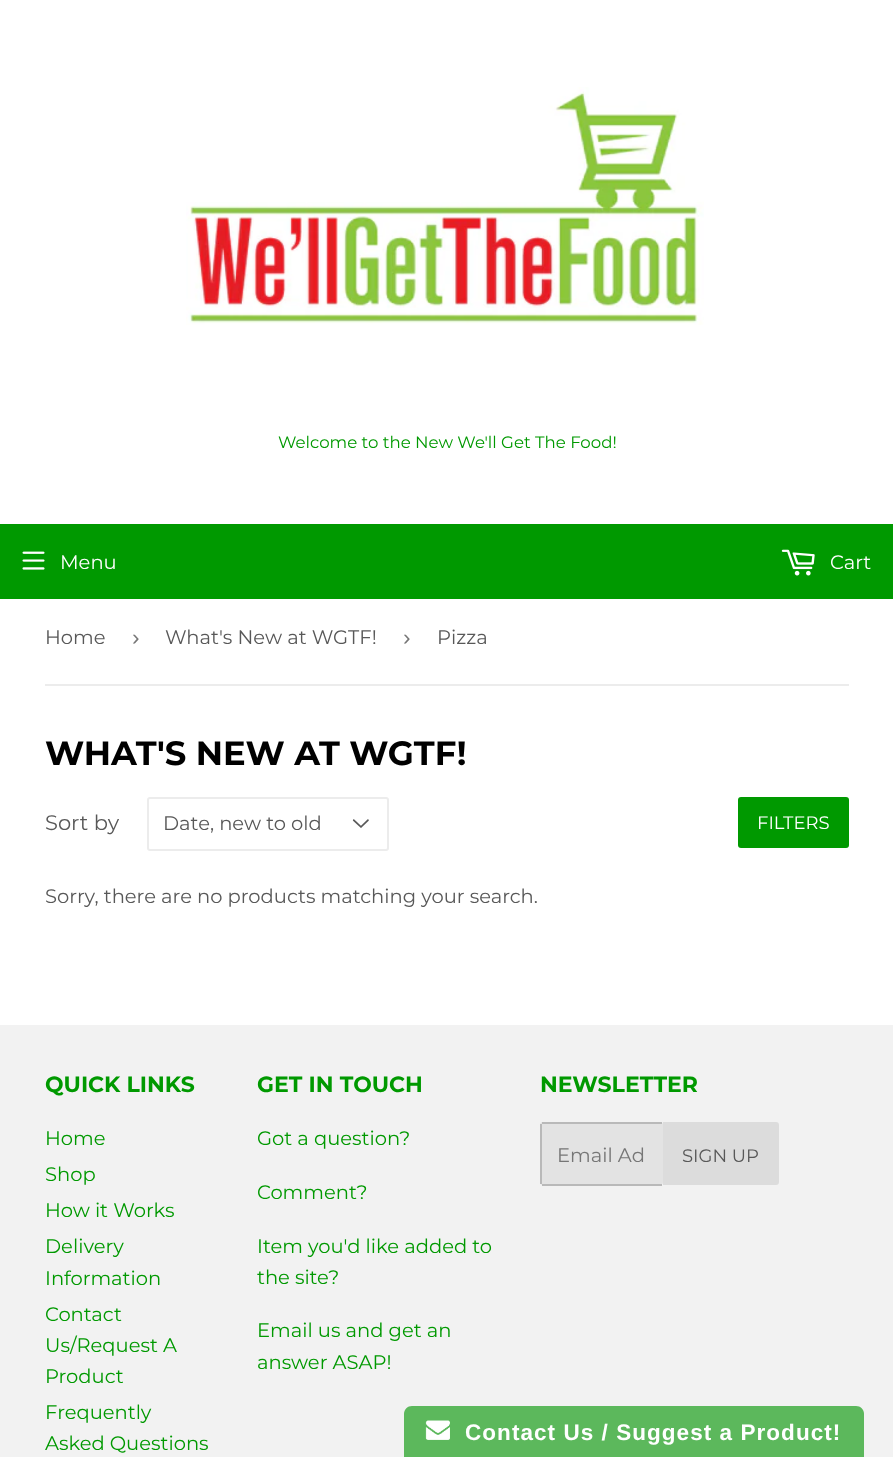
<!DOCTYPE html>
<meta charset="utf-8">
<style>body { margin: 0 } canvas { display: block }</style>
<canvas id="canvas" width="893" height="1457"></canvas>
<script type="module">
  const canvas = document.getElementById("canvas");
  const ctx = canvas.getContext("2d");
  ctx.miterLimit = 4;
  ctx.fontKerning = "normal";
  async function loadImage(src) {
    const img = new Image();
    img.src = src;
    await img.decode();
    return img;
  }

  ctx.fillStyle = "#ffffff";
  ctx.fillRect(0, 0, 893, 1457);
  ctx.drawImage(await loadImage("img1.png"), 186, 87, 518, 238);
  ctx.font = "16.6px Montserrat";
  ctx.fillStyle = "#009900";
  ctx.fillText("Welcome to the New We'll Get The Food!", 278, 448);
  ctx.fillRect(0, 524, 893, 75);
  ctx.drawImage(await loadImage("img2.png"), 22, 551, 23, 19);
  ctx.font = "19.5px Montserrat";
  ctx.fillStyle = "#ffffff";
  ctx.fillText("Menu", 60, 569);
  ctx.drawImage(await loadImage("img3.png"), 781, 549, 34, 27);
  ctx.fillText("Cart", 830, 569);
  ctx.fillStyle = "#ececec";
  ctx.fillRect(45, 684, 804, 2);
  ctx.fillStyle = "#585858";
  ctx.fillText("Home", 45, 644);
  ctx.font = "22.5px Liberation Sans";
  ctx.fillStyle = "#767676";
  ctx.fillText("›", 132, 645);
  ctx.font = "19.5px Montserrat";
  ctx.fillStyle = "#585858";
  ctx.fillText("What's New at WGTF!", 165, 644);
  ctx.font = "22.5px Liberation Sans";
  ctx.fillStyle = "#767676";
  ctx.fillText("›", 403, 645);
  ctx.font = "19.5px Montserrat";
  ctx.fillStyle = "#585858";
  ctx.fillText("Pizza", 437, 644);
  ctx.font = "bold 33.75px Montserrat";
  ctx.fillStyle = "#000000";
  ctx.fillText("WHAT'S NEW AT WGTF!", 45, 765);
  ctx.font = "21px Montserrat";
  ctx.fillStyle = "#585858";
  ctx.fillText("Sort by", 45, 830);
  ctx.drawImage(await loadImage("img4.png"), 352, 819, 17, 9);
  ctx.beginPath();
  ctx.roundRect(148, 798, 240, 52, 2);
  ctx.strokeStyle = "#ececec";
  ctx.lineWidth = 2;
  ctx.stroke();
  ctx.font = "19.5px Montserrat";
  ctx.fillText("Date, new to old", 163, 830);
  ctx.fillStyle = "#009900";
  ctx.beginPath();
  ctx.roundRect(738, 797, 111, 51, 3);
  ctx.fill();
  ctx.font = "18px Montserrat";
  ctx.fillStyle = "#ffffff";
  ctx.fillText("FILTERS", 757, 829);
  ctx.font = "19.5px Montserrat";
  ctx.fillStyle = "#585858";
  ctx.fillText("Sorry, there are no products matching your search.", 45, 903);
  ctx.fillStyle = "#f2f2f2";
  ctx.fillRect(0, 1025, 893, 432);
  ctx.font = "bold 22px Montserrat";
  ctx.fillStyle = "#009900";
  ctx.fillText("QUICK LINKS", 45, 1092);
  ctx.font = "19.5px Montserrat";
  ctx.fillText("Home", 45, 1145);
  ctx.fillText("Shop", 45, 1181);
  ctx.fillText("How it Works", 45, 1217);
  ctx.fillText("Delivery", 45, 1253);
  ctx.fillText("Information", 45, 1285);
  ctx.fillText("Contact", 45, 1321);
  ctx.fillText("Us/Request A", 45, 1352);
  ctx.fillText("Product", 45, 1383);
  ctx.fillText("Frequently", 45, 1419);
  ctx.fillText("Asked Questions", 45, 1450);
  ctx.font = "bold 22px Montserrat";
  ctx.fillText("GET IN TOUCH", 257, 1092);
  ctx.font = "19.5px Montserrat";
  ctx.fillText("Got a question?", 257, 1145);
  ctx.fillText("Comment?", 257, 1199);
  ctx.fillText("Item you'd like added to", 257, 1253);
  ctx.fillText("the site?", 257, 1284);
  ctx.fillText("Email us and get an", 257, 1337);
  ctx.fillText("answer ASAP!", 257, 1369);
  ctx.font = "bold 22px Montserrat";
  ctx.fillText("NEWSLETTER", 540, 1092);
  ctx.fillStyle = "#e3e3e3";
  ctx.beginPath();
  ctx.roundRect(540, 1122, 123, 63, 3);
  ctx.fill();
  ctx.fillStyle = "#b9b9b9";
  ctx.fillRect(542, 1122, 120, 2);
  ctx.fillRect(542, 1184, 120, 2);
  ctx.fillRect(540, 1124, 2, 60);
  ctx.font = "19.5px Montserrat";
  ctx.fillStyle = "#767676";
  ctx.fillText("Email Ad", 557, 1162);
  ctx.fillStyle = "#dcdcdc";
  ctx.beginPath();
  ctx.roundRect(663, 1122, 116, 63, [0, 3, 3, 0]);
  ctx.fill();
  ctx.font = "18px Montserrat";
  ctx.fillStyle = "#585858";
  ctx.fillText("SIGN UP", 682, 1162);
  ctx.fillStyle = "#5cb85c";
  ctx.beginPath();
  ctx.moveTo(412, 1406);
  ctx.lineTo(856, 1406);
  ctx.bezierCurveTo(860.5, 1406, 864, 1409.5, 864, 1414);
  ctx.lineTo(864, 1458);
  ctx.lineTo(404, 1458);
  ctx.lineTo(404, 1414);
  ctx.bezierCurveTo(404, 1409.5, 407.5, 1406, 412, 1406);
  ctx.closePath();
  ctx.fill();
  ctx.drawImage(await loadImage("img5.png"), 425, 1420, 25, 20);
  ctx.letterSpacing = "1.05px";
  ctx.font = "bold 22.5px Liberation Sans";
  ctx.fillStyle = "#ffffff";
  ctx.fillText("Contact Us / Suggest a Product!", 465, 1440);
</script>
